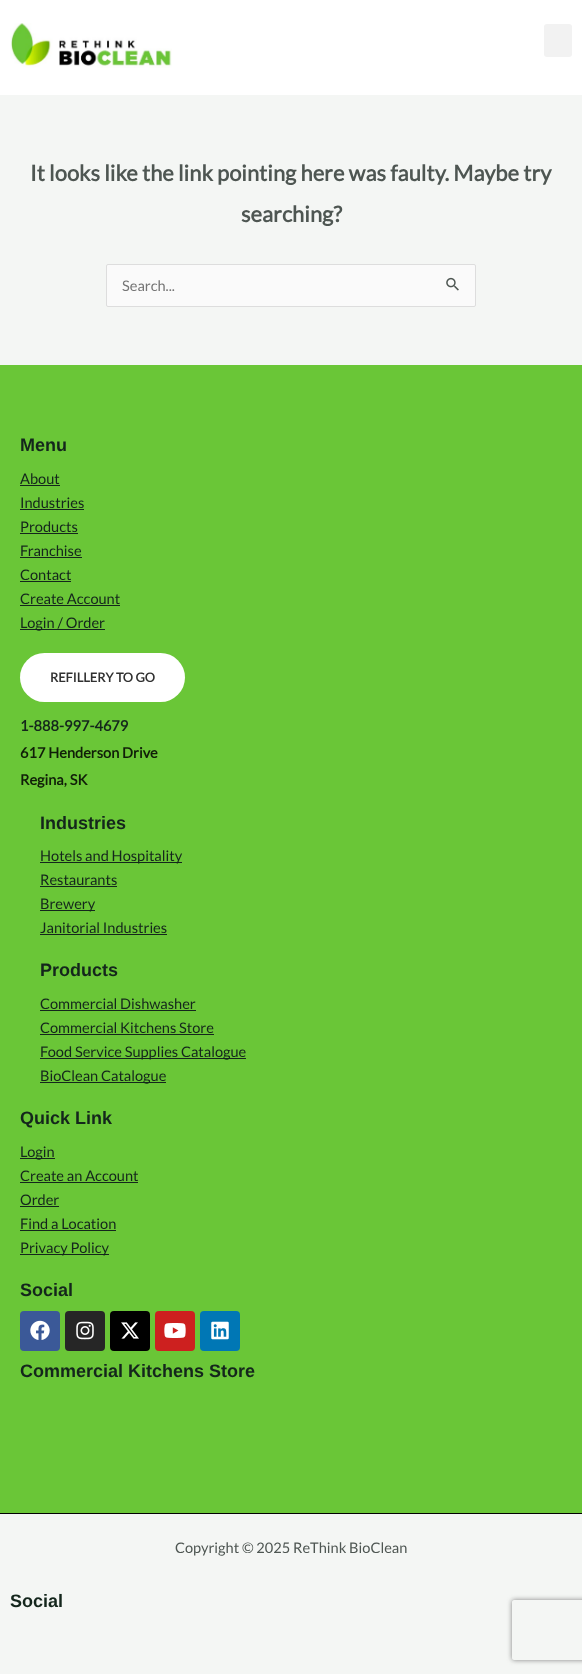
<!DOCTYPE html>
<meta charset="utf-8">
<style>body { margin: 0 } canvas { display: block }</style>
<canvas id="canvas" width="582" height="1674"></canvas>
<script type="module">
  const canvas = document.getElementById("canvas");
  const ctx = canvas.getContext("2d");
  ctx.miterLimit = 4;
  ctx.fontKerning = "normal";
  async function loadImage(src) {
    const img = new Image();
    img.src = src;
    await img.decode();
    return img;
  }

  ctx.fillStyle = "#f4f6f4";
  ctx.fillRect(0, 0, 582, 1674);
  ctx.fillStyle = "#ffffff";
  ctx.fillRect(0, 0, 582, 95);
  ctx.drawImage(await loadImage("img1.png"), 10, 23, 162, 45);
  ctx.fillStyle = "#f2f2f2";
  ctx.beginPath();
  ctx.roundRect(544, 24, 28, 33, 3);
  ctx.fill();
  ctx.font = "bold 21.9px Lato";
  ctx.fillStyle = "#4e5652";
  ctx.fillText("It looks like the link pointing here was faulty. Maybe try", 30, 181);
  ctx.fillText("searching?", 241, 222);
  ctx.fillStyle = "#fafafa";
  ctx.beginPath();
  ctx.roundRect(106.5, 264.5, 369, 42, 1.5);
  ctx.fill();
  ctx.strokeStyle = "#dddddd";
  ctx.stroke();
  ctx.font = "14.6px Lato";
  ctx.fillStyle = "#757575";
  ctx.fillText("Search...", 122, 291);
  ctx.drawImage(await loadImage("img2.png"), 446, 277, 13, 14);
  ctx.fillStyle = "#6ac637";
  ctx.fillRect(0, 365, 582, 1148);
  ctx.fillStyle = "#000000";
  ctx.fillRect(0, 1513, 582, 1);
  ctx.font = "bold 18px Liberation Sans";
  ctx.fillStyle = "#14261c";
  ctx.fillText("Menu", 20, 451);
  ctx.font = "14.6px Lato";
  ctx.fillText("About", 20, 484);
  ctx.fillRect(20, 485, 40, 1);
  ctx.fillText("Industries", 20, 508);
  ctx.fillRect(20, 509, 64, 1);
  ctx.fillText("Products", 20, 532);
  ctx.fillRect(20, 533, 58, 1);
  ctx.fillText("Franchise", 20, 556);
  ctx.fillRect(20, 557, 62, 1);
  ctx.fillText("Contact", 20, 580);
  ctx.fillRect(20, 581, 51, 1);
  ctx.fillText("Create Account", 20, 604);
  ctx.fillRect(20, 605, 100, 1);
  ctx.fillRect(20, 629, 85, 1);
  ctx.fillText("Login / Order", 20, 628);
  ctx.fillStyle = "#ffffff";
  ctx.beginPath();
  ctx.roundRect(20, 653, 165, 49, 24.5);
  ctx.fill();
  ctx.font = "bold 12.75px Lato";
  ctx.fillStyle = "#303030";
  ctx.fillText("REFILLERY TO GO", 50, 682);
  ctx.font = "bold 14.6px Lato";
  ctx.fillStyle = "#14261c";
  ctx.fillText("1-888-997-4679", 20, 731);
  ctx.fillStyle = "#101e08";
  ctx.fillText("617 Henderson Drive", 20, 758);
  ctx.fillText("Regina, SK", 20, 785);
  ctx.font = "bold 18px Liberation Sans";
  ctx.fillStyle = "#14261c";
  ctx.fillText("Industries", 40, 829);
  ctx.fillRect(40, 862, 142, 1);
  ctx.font = "14.6px Lato";
  ctx.fillText("Hotels and Hospitality", 40, 861);
  ctx.fillText("Restaurants", 40, 885);
  ctx.fillRect(40, 886, 77, 1);
  ctx.fillRect(40, 910, 55, 1);
  ctx.fillText("Brewery", 40, 909);
  ctx.fillText("Janitorial Industries", 40, 933);
  ctx.fillRect(40, 934, 127, 1);
  ctx.font = "bold 18px Liberation Sans";
  ctx.fillText("Products", 40, 976);
  ctx.font = "14.6px Lato";
  ctx.fillText("Commercial Dishwasher", 40, 1009);
  ctx.fillRect(40, 1010, 156, 1);
  ctx.fillText("Commercial Kitchens Store", 40, 1033);
  ctx.fillRect(40, 1034, 174, 1);
  ctx.fillRect(40, 1058, 206, 1);
  ctx.fillText("Food Service Supplies Catalogue", 40, 1057);
  ctx.fillRect(40, 1082, 126, 1);
  ctx.fillText("BioClean Catalogue", 40, 1081);
  ctx.font = "bold 18px Liberation Sans";
  ctx.fillText("Quick Link", 20, 1124);
  ctx.fillRect(20, 1158, 35, 1);
  ctx.font = "14.6px Lato";
  ctx.fillText("Login", 20, 1157);
  ctx.fillText("Create an Account", 20, 1181);
  ctx.fillRect(20, 1182, 118, 1);
  ctx.fillText("Order", 20, 1205);
  ctx.fillRect(20, 1206, 39, 1);
  ctx.fillText("Find a Location", 20, 1229);
  ctx.fillRect(20, 1230, 96, 1);
  ctx.fillRect(20, 1254, 89, 1);
  ctx.fillText("Privacy Policy", 20, 1253);
  ctx.font = "bold 18px Liberation Sans";
  ctx.fillText("Social", 20, 1296);
  ctx.fillStyle = "#3b5998";
  ctx.beginPath();
  ctx.roundRect(20, 1311, 40, 40, 4);
  ctx.fill();
  ctx.drawImage(await loadImage("img3.png"), 30, 1320, 20, 20);
  ctx.fillStyle = "#262626";
  ctx.beginPath();
  ctx.roundRect(65, 1311, 40, 40, 4);
  ctx.fill();
  ctx.drawImage(await loadImage("img4.png"), 76, 1321, 18, 19);
  ctx.fillStyle = "#000000";
  ctx.beginPath();
  ctx.roundRect(110, 1311, 40, 40, 4);
  ctx.fill();
  ctx.drawImage(await loadImage("img5.png"), 121, 1322, 18, 17);
  ctx.fillStyle = "#cd201f";
  ctx.beginPath();
  ctx.roundRect(155, 1311, 40, 40, 4);
  ctx.fill();
  ctx.drawImage(await loadImage("img6.png"), 164, 1323, 22, 15);
  ctx.fillStyle = "#0077b5";
  ctx.beginPath();
  ctx.roundRect(200, 1311, 40, 40, 4);
  ctx.fill();
  ctx.drawImage(await loadImage("img7.png"), 211, 1321, 18, 19);
  ctx.fillStyle = "#14261c";
  ctx.fillText("Commercial Kitchens Store", 20, 1377);
  ctx.font = "14.6px Lato";
  ctx.fillStyle = "#4e5652";
  ctx.fillText("Copyright © 2025 ReThink BioClean", 175, 1553);
  ctx.font = "bold 18px Liberation Sans";
  ctx.fillStyle = "#14261c";
  ctx.fillText("Social", 10, 1607);
  ctx.save();
  ctx.beginPath();
  ctx.moveTo(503, 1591);
  ctx.lineTo(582, 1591);
  ctx.lineTo(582, 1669);
  ctx.lineTo(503, 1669);
  ctx.closePath();
  ctx.moveTo(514, 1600);
  ctx.lineTo(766, 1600);
  ctx.bezierCurveTo(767, 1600, 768, 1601, 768, 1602);
  ctx.lineTo(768, 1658);
  ctx.bezierCurveTo(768, 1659, 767, 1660, 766, 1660);
  ctx.lineTo(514, 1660);
  ctx.bezierCurveTo(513, 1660, 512, 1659, 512, 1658);
  ctx.lineTo(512, 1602);
  ctx.bezierCurveTo(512, 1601, 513, 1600, 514, 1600);
  ctx.closePath();
  ctx.clip("evenodd");
  ctx.fillStyle = "#808080";
  ctx.filter = "blur(2.5px)";
  ctx.beginPath();
  ctx.roundRect(512, 1600, 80, 60, 2);
  ctx.fill();
  ctx.filter = "none";
  ctx.restore();
</script>
